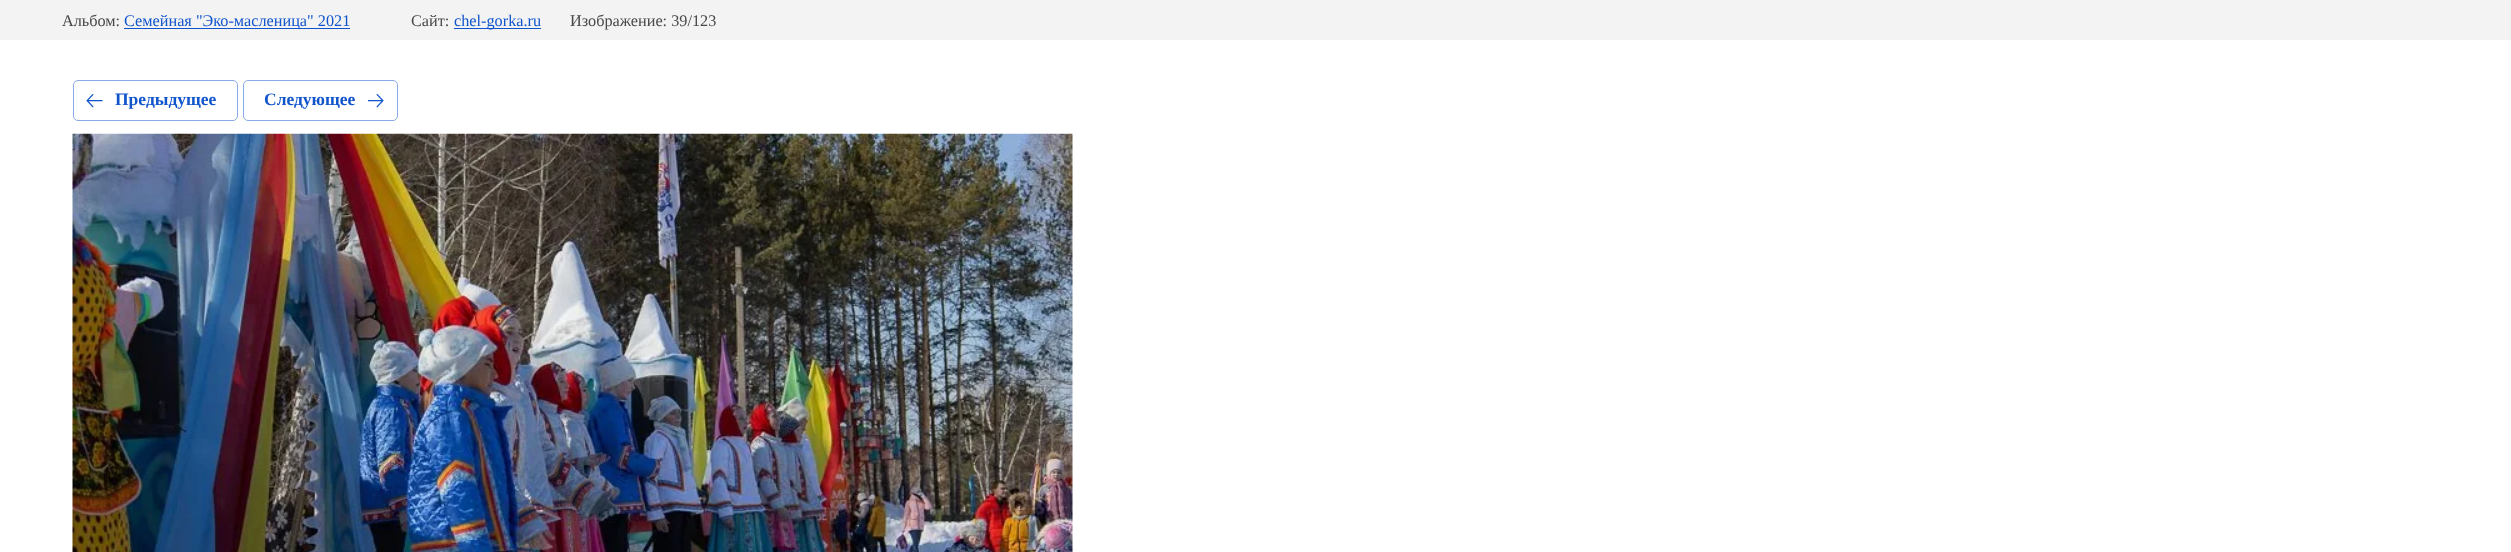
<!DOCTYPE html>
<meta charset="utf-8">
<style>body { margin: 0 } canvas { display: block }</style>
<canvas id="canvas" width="2511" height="552"></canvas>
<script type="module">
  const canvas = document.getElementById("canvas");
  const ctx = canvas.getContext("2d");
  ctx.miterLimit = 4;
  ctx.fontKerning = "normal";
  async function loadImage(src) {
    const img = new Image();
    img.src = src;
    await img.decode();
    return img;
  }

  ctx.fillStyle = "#ffffff";
  ctx.fillRect(0, 0, 2511, 552);
  ctx.fillStyle = "#f3f3f3";
  ctx.fillRect(0, 0, 2511, 40);
  ctx.font = "16.25px Liberation Serif";
  ctx.fillStyle = "#484848";
  ctx.fillText("Альбом:", 62, 26);
  ctx.fillStyle = "#1155cc";
  ctx.fillRect(124, 28, 226, 1);
  ctx.fillText("Семейная \"Эко-масленица\" 2021", 124, 26);
  ctx.fillStyle = "#484848";
  ctx.fillText("Сайт:", 411, 26);
  ctx.fillStyle = "#1155cc";
  ctx.fillRect(454, 28, 87, 1);
  ctx.fillText("chel-gorka.ru", 454, 26);
  ctx.fillStyle = "#484848";
  ctx.fillText("Изображение: 39/123", 570, 26);
  ctx.beginPath();
  ctx.roundRect(73.5, 80.5, 164, 40, 4.5);
  ctx.strokeStyle = "#88aae6";
  ctx.stroke();
  ctx.drawImage(await loadImage("img1.png"), 86, 94, 17, 14);
  ctx.font = "bold 17.5px Liberation Serif";
  ctx.fillStyle = "#1155cc";
  ctx.fillText("Предыдущее", 115, 105);
  ctx.beginPath();
  ctx.roundRect(243.5, 80.5, 154, 40, 4.5);
  ctx.stroke();
  ctx.fillText("Следующее", 264, 105);
  ctx.drawImage(await loadImage("img2.png"), 368, 94, 16, 14);
  ctx.drawImage(await loadImage("img3.png"), 72, 133, 1001, 419);
</script>
